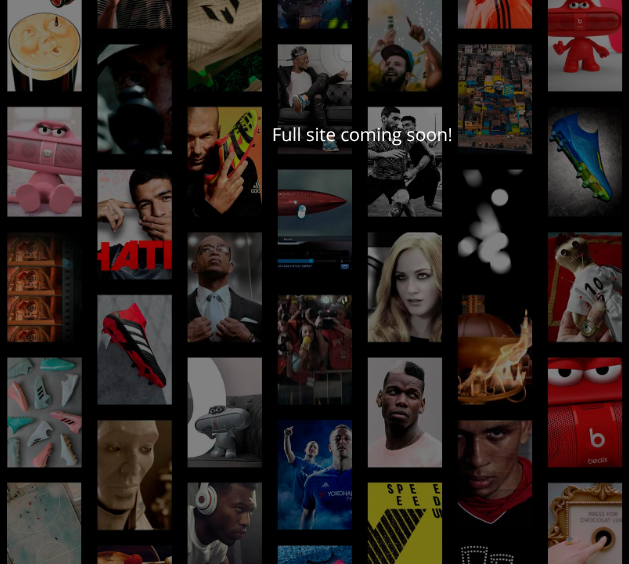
<!DOCTYPE html>
<meta charset="utf-8">
<style>body { margin: 0 } canvas { display: block }</style>
<canvas id="canvas" width="629" height="564"></canvas>
<script type="module">
  const canvas = document.getElementById("canvas");
  const ctx = canvas.getContext("2d");
  ctx.miterLimit = 4;
  ctx.fontKerning = "normal";
  async function loadImage(src) {
    const img = new Image();
    img.src = src;
    await img.decode();
    return img;
  }

  ctx.fillStyle = "#000000";
  ctx.fillRect(0, 0, 629, 564);
  ctx.drawImage(await loadImage("img1.png"), 4, 0, 619, 564);
  ctx.font = "18px Open Sans";
  ctx.fillStyle = "#ffffff";
  ctx.fillText("Full site coming soon!", 272, 141);
</script>
